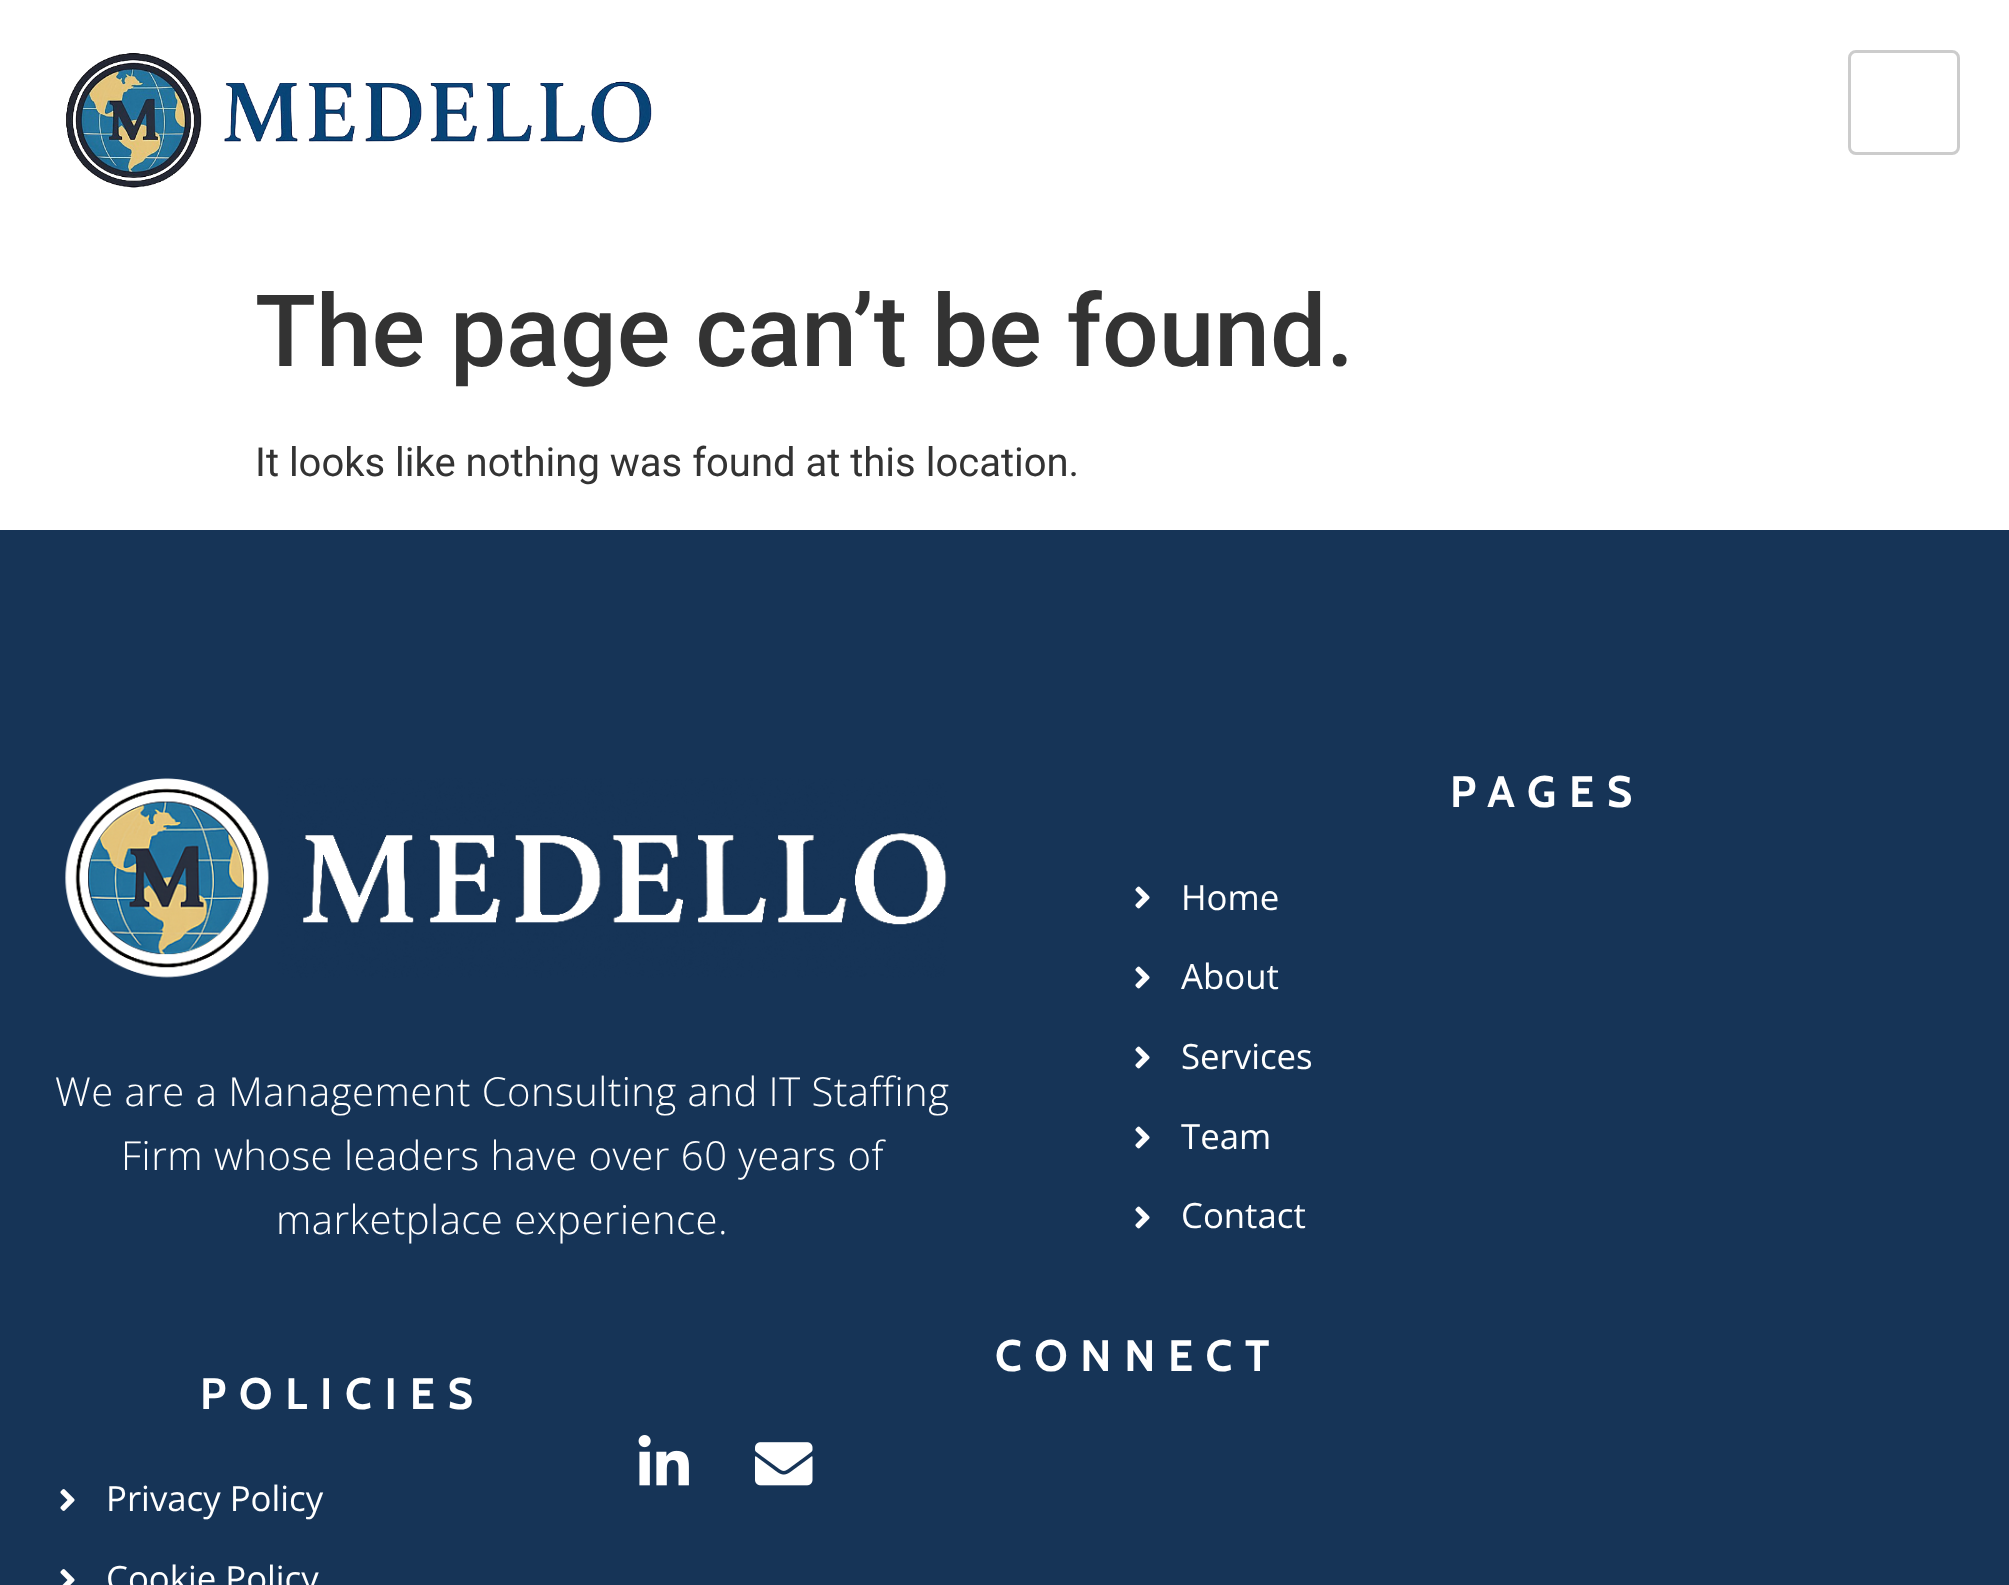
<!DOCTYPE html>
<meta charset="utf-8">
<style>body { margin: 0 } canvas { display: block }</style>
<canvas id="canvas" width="2009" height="1585"></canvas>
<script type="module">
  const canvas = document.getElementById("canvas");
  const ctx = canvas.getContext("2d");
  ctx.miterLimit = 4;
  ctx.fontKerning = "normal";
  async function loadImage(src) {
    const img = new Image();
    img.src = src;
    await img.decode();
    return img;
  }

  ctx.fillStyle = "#ffffff";
  ctx.fillRect(0, 0, 2009, 1585);
  ctx.drawImage(await loadImage("img1.png"), 66, 53, 586, 135);
  ctx.beginPath();
  ctx.roundRect(1849.5, 51.5, 109, 102, 6.5);
  ctx.strokeStyle = "#cccccc";
  ctx.lineWidth = 3;
  ctx.stroke();
  ctx.font = "500 100px Roboto";
  ctx.fillStyle = "#333333";
  ctx.fillText("The page can’t be found.", 255, 366);
  ctx.font = "40px Roboto";
  ctx.fillText("It looks like nothing was found at this location.", 255, 476);
  ctx.fillStyle = "#163457";
  ctx.fillRect(0, 530, 2009, 1055);
  ctx.drawImage(await loadImage("img2.png"), 65, 778, 882, 200);
  ctx.letterSpacing = "0.5px";
  ctx.font = "300 40px Open Sans";
  ctx.fillStyle = "#ffffff";
  ctx.fillText("We are a Management Consulting and IT Staffing", 55, 1106);
  ctx.fillText("Firm whose leaders have over 60 years of", 121, 1170);
  ctx.fillText("marketplace experience.", 276, 1234);
  ctx.letterSpacing = "12.75px";
  ctx.font = "bold 44px Cabin";
  ctx.fillText("PAGES", 1450, 807);
  ctx.drawImage(await loadImage("img3.png"), 1135, 886, 15, 23);
  ctx.letterSpacing = "0px";
  ctx.font = "34.75px Open Sans";
  ctx.fillText("Home", 1181, 910);
  ctx.drawImage(await loadImage("img3.png"), 1135, 966, 15, 23);
  ctx.fillText("About", 1181, 989);
  ctx.drawImage(await loadImage("img3.png"), 1135, 1046, 15, 23);
  ctx.fillText("Services", 1181, 1069);
  ctx.drawImage(await loadImage("img3.png"), 1135, 1126, 15, 23);
  ctx.fillText("Team", 1181, 1149);
  ctx.drawImage(await loadImage("img3.png"), 1135, 1206, 15, 23);
  ctx.fillText("Contact", 1181, 1228);
  ctx.letterSpacing = "12.75px";
  ctx.font = "bold 44px Cabin";
  ctx.fillText("CONNECT", 995, 1371);
  ctx.drawImage(await loadImage("img4.png"), 638, 1435, 51, 51);
  ctx.drawImage(await loadImage("img5.png"), 755, 1442, 58, 44);
  ctx.fillText("POLICIES", 200, 1409);
  ctx.drawImage(await loadImage("img6.png"), 60, 1489, 15, 22);
  ctx.letterSpacing = "0px";
  ctx.font = "34.75px Open Sans";
  ctx.fillText("Privacy Policy", 106, 1511);
  ctx.drawImage(await loadImage("img7.png"), 60, 1569, 15, 16);
  ctx.fillText("Cookie Policy", 106, 1591);
</script>
